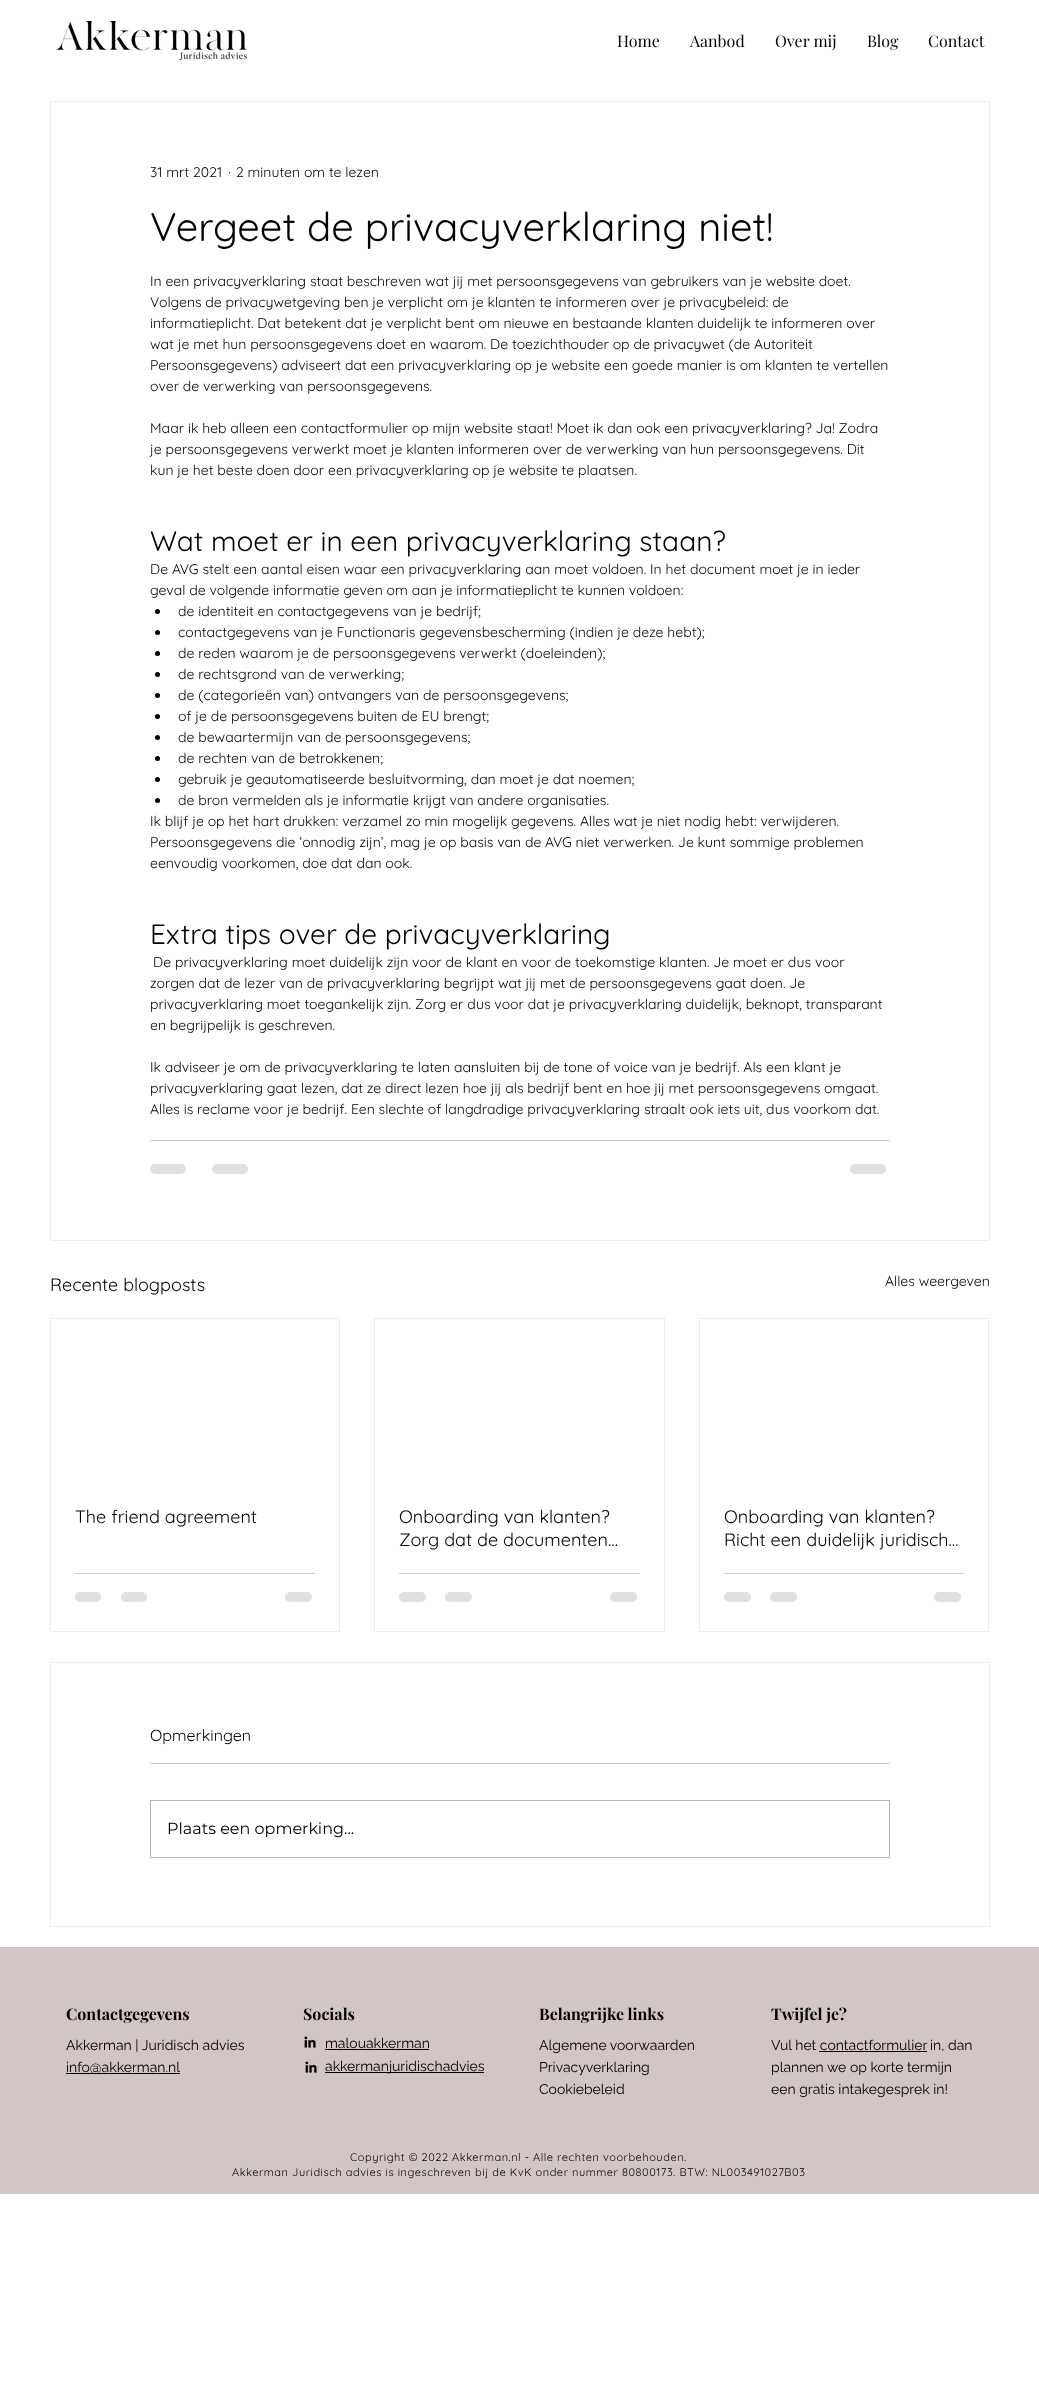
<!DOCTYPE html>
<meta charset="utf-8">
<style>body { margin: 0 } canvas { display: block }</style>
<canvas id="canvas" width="1039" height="2400"></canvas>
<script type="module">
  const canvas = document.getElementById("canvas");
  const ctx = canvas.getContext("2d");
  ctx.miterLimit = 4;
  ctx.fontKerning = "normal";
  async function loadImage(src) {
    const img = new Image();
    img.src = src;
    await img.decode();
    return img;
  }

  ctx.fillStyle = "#ffffff";
  ctx.fillRect(0, 0, 1039, 2400);
  ctx.drawImage(await loadImage("img1.png"), 56, 21, 191, 39);
  ctx.font = "16px Playfair Display";
  ctx.fillStyle = "#000000";
  ctx.fillText("Home", 617, 47);
  ctx.fillText("Aanbod", 690, 47);
  ctx.fillText("Over mij", 775, 47);
  ctx.fillText("Blog", 867, 47);
  ctx.fillText("Contact", 928, 47);
  ctx.strokeStyle = "#eeecec";
  ctx.strokeRect(50.5, 101.5, 939, 1139);
  ctx.font = "14px Quicksand";
  ctx.fillText("31 mrt 2021", 150, 177);
  ctx.fillText("·", 228, 177);
  ctx.fillText("2 minuten om te lezen", 236, 177);
  ctx.font = "40px Quicksand";
  ctx.fillText("Vergeet de privacyverklaring niet!", 150, 241);
  ctx.font = "14px Quicksand";
  ctx.fillText("In een privacyverklaring staat beschreven wat jij met persoonsgegevens van gebruikers van je website doet.", 150, 286);
  ctx.fillText("Volgens de privacywetgeving ben je verplicht om je klanten te informeren over je privacybeleid: de", 150, 307);
  ctx.fillText("informatieplicht. Dat betekent dat je verplicht bent om nieuwe en bestaande klanten duidelijk te informeren over", 150, 328);
  ctx.fillText("wat je met hun persoonsgegevens doet en waarom. De toezichthouder op de privacywet (de Autoriteit", 150, 349);
  ctx.fillText("Persoonsgegevens) adviseert dat een privacyverklaring op je website een goede manier is om klanten te vertellen", 150, 370);
  ctx.fillText("over de verwerking van persoonsgegevens.", 150, 391);
  ctx.fillText("Maar ik heb alleen een contactformulier op mijn website staat! Moet ik dan ook een privacyverklaring? Ja! Zodra", 150, 433);
  ctx.fillText("je persoonsgegevens verwerkt moet je klanten informeren over de verwerking van hun persoonsgegevens. Dit", 150, 454);
  ctx.fillText("kun je het beste doen door een privacyverklaring op je website te plaatsen.", 150, 475);
  ctx.font = "28px Quicksand";
  ctx.fillText("Wat moet er in een privacyverklaring staan?", 150, 551);
  ctx.font = "14px Quicksand";
  ctx.fillText("De AVG stelt een aantal eisen waar een privacyverklaring aan moet voldoen. In het document moet je in ieder", 150, 574);
  ctx.fillText("geval de volgende informatie geven om aan je informatieplicht te kunnen voldoen:", 150, 595);
  ctx.beginPath();
  ctx.arc(157.5, 611.5, 2.5, 0, Math.PI * 2);
  ctx.fill();
  ctx.fillText("de identiteit en contactgegevens van je bedrijf;", 178, 616);
  ctx.beginPath();
  ctx.arc(157.5, 632.5, 2.5, 0, Math.PI * 2);
  ctx.fill();
  ctx.fillText("contactgegevens van je Functionaris gegevensbescherming (indien je deze hebt);", 178, 637);
  ctx.beginPath();
  ctx.arc(157.5, 653.5, 2.5, 0, Math.PI * 2);
  ctx.fill();
  ctx.fillText("de reden waarom je de persoonsgegevens verwerkt (doeleinden);", 178, 658);
  ctx.beginPath();
  ctx.arc(157.5, 674.5, 2.5, 0, Math.PI * 2);
  ctx.fill();
  ctx.fillText("de rechtsgrond van de verwerking;", 178, 679);
  ctx.beginPath();
  ctx.arc(157.5, 695.5, 2.5, 0, Math.PI * 2);
  ctx.fill();
  ctx.fillText("de (categorieën van) ontvangers van de persoonsgegevens;", 178, 700);
  ctx.beginPath();
  ctx.arc(157.5, 716.5, 2.5, 0, Math.PI * 2);
  ctx.fill();
  ctx.fillText("of je de persoonsgegevens buiten de EU brengt;", 178, 721);
  ctx.beginPath();
  ctx.arc(157.5, 737.5, 2.5, 0, Math.PI * 2);
  ctx.fill();
  ctx.fillText("de bewaartermijn van de persoonsgegevens;", 178, 742);
  ctx.beginPath();
  ctx.arc(157.5, 758.5, 2.5, 0, Math.PI * 2);
  ctx.fill();
  ctx.fillText("de rechten van de betrokkenen;", 178, 763);
  ctx.beginPath();
  ctx.arc(157.5, 779.5, 2.5, 0, Math.PI * 2);
  ctx.fill();
  ctx.fillText("gebruik je geautomatiseerde besluitvorming, dan moet je dat noemen;", 178, 784);
  ctx.beginPath();
  ctx.arc(157.5, 800.5, 2.5, 0, Math.PI * 2);
  ctx.fill();
  ctx.fillText("de bron vermelden als je informatie krijgt van andere organisaties.", 178, 805);
  ctx.fillText("Ik blijf je op het hart drukken: verzamel zo min mogelijk gegevens. Alles wat je niet nodig hebt: verwijderen.", 150, 826);
  ctx.fillText("Persoonsgegevens die ‘onnodig zijn’, mag je op basis van de AVG niet verwerken. Je kunt sommige problemen", 150, 847);
  ctx.fillText("eenvoudig voorkomen, doe dat dan ook.", 150, 868);
  ctx.font = "28px Quicksand";
  ctx.fillText("Extra tips over de privacyverklaring", 150, 944);
  ctx.font = "14px Quicksand";
  ctx.fillText("De privacyverklaring moet duidelijk zijn voor de klant en voor de toekomstige klanten. Je moet er dus voor", 153, 967);
  ctx.fillText("zorgen dat de lezer van de privacyverklaring begrijpt wat jij met de persoonsgegevens gaat doen. Je", 150, 988);
  ctx.fillText("privacyverklaring moet toegankelijk zijn. Zorg er dus voor dat je privacyverklaring duidelijk, beknopt, transparant", 150, 1009);
  ctx.fillText("en begrijpelijk is geschreven.", 150, 1030);
  ctx.fillText("Ik adviseer je om de privacyverklaring te laten aansluiten bij de tone of voice van je bedrijf. Als een klant je", 150, 1072);
  ctx.fillText("privacyverklaring gaat lezen, dat ze direct lezen hoe jij als bedrijf bent en hoe jij met persoonsgegevens omgaat.", 150, 1093);
  ctx.fillText("Alles is reclame voor je bedrijf. Een slechte of langdradige privacyverklaring straalt ook iets uit, dus voorkom dat.", 150, 1114);
  ctx.fillStyle = "#cccccc";
  ctx.fillRect(150, 1140, 740, 1);
  ctx.fillStyle = "#e0e0e0";
  ctx.beginPath();
  ctx.roundRect(150, 1164, 36, 10, 5);
  ctx.fill();
  ctx.beginPath();
  ctx.roundRect(212, 1164, 36, 10, 5);
  ctx.fill();
  ctx.beginPath();
  ctx.roundRect(850, 1164, 36, 10, 5);
  ctx.fill();
  ctx.font = "18px Quicksand";
  ctx.fillStyle = "#000000";
  ctx.fillText("Recente blogposts", 50, 1291);
  ctx.font = "14px Quicksand";
  ctx.fillText("Alles weergeven", 885, 1286);
  ctx.strokeRect(50.5, 1318.5, 289, 313);
  ctx.font = "18px Quicksand";
  ctx.fillText("The friend agreement", 75, 1523);
  ctx.fillStyle = "#cccccc";
  ctx.fillRect(75, 1573, 240, 1);
  ctx.fillStyle = "#e0e0e0";
  ctx.beginPath();
  ctx.roundRect(75, 1592, 26, 10, 5);
  ctx.fill();
  ctx.beginPath();
  ctx.roundRect(121, 1592, 26, 10, 5);
  ctx.fill();
  ctx.beginPath();
  ctx.roundRect(285, 1592, 27, 10, 5);
  ctx.fill();
  ctx.strokeRect(374.5, 1318.5, 290, 313);
  ctx.fillStyle = "#000000";
  ctx.fillText("Onboarding van klanten?", 399, 1523);
  ctx.fillText("Zorg dat de documenten…", 399, 1546);
  ctx.fillStyle = "#cccccc";
  ctx.fillRect(399, 1573, 241, 1);
  ctx.fillStyle = "#e0e0e0";
  ctx.beginPath();
  ctx.roundRect(399, 1592, 27, 10, 5);
  ctx.fill();
  ctx.beginPath();
  ctx.roundRect(445, 1592, 27, 10, 5);
  ctx.fill();
  ctx.beginPath();
  ctx.roundRect(610, 1592, 27, 10, 5);
  ctx.fill();
  ctx.strokeRect(699.5, 1318.5, 289, 313);
  ctx.fillStyle = "#000000";
  ctx.fillText("Onboarding van klanten?", 724, 1523);
  ctx.fillText("Richt een duidelijk juridisch…", 724, 1546);
  ctx.fillStyle = "#cccccc";
  ctx.fillRect(724, 1573, 240, 1);
  ctx.fillStyle = "#e0e0e0";
  ctx.beginPath();
  ctx.roundRect(724, 1592, 27, 10, 5);
  ctx.fill();
  ctx.beginPath();
  ctx.roundRect(770, 1592, 27, 10, 5);
  ctx.fill();
  ctx.beginPath();
  ctx.roundRect(934, 1592, 27, 10, 5);
  ctx.fill();
  ctx.strokeRect(50.5, 1662.5, 939, 264);
  ctx.font = "16px Quicksand";
  ctx.fillStyle = "#000000";
  ctx.fillText("Opmerkingen", 150, 1741);
  ctx.fillStyle = "#cccccc";
  ctx.fillRect(150, 1763, 740, 1);
  ctx.strokeStyle = "#b3b3b3";
  ctx.strokeRect(150.5, 1800.5, 739, 57);
  ctx.font = "16px Montserrat";
  ctx.fillStyle = "#000000";
  ctx.fillText("Plaats een opmerking...", 167, 1834);
  ctx.fillStyle = "#d1c6c5";
  ctx.fillRect(0, 1947, 1039, 247);
  ctx.font = "bold 16px Playfair Display";
  ctx.fillStyle = "#000000";
  ctx.fillText("Contactgegevens", 66, 2020);
  ctx.fillText("Socials", 303, 2020);
  ctx.fillText("Belangrijke links", 539, 2020);
  ctx.fillText("Twijfel je?", 771, 2020);
  ctx.font = "14px Raleway";
  ctx.fillText("Akkerman | Juridisch advies", 66, 2050);
  ctx.fillRect(66, 2073, 114, 1);
  ctx.fillText("info@akkerman.nl", 66, 2072);
  ctx.drawImage(await loadImage("img2.png"), 304, 2036, 12, 12);
  ctx.fillText("malouakkerman", 325, 2048);
  ctx.fillRect(325, 2049, 104, 1);
  ctx.fillText("Algemene voorwaarden", 539, 2050);
  ctx.fillText("Privacyverklaring", 539, 2072);
  ctx.fillText("Cookiebeleid", 539, 2094);
  ctx.fillText("Vul het contactformulier", 771, 2050);
  ctx.fillRect(819, 2051, 108, 1);
  ctx.fillText("in, dan", 930, 2050);
  ctx.fillText("plannen we op korte termijn", 771, 2072);
  ctx.fillText("een gratis intakegesprek in!", 771, 2094);
  ctx.drawImage(await loadImage("img2.png"), 305, 2061, 12, 12);
  ctx.fillRect(325, 2072, 159, 1);
  ctx.fillText("akkermanjuridischadvies", 325, 2071);
  ctx.letterSpacing = "0.55px";
  ctx.font = "11px Quicksand";
  ctx.fillText("Copyright © 2022 Akkerman.nl - Alle rechten voorbehouden.", 350, 2161);
  ctx.fillText("Akkerman Juridisch advies is ingeschreven bij de KvK onder nummer 80800173. BTW: NL003491027B03", 232, 2176);
</script>
